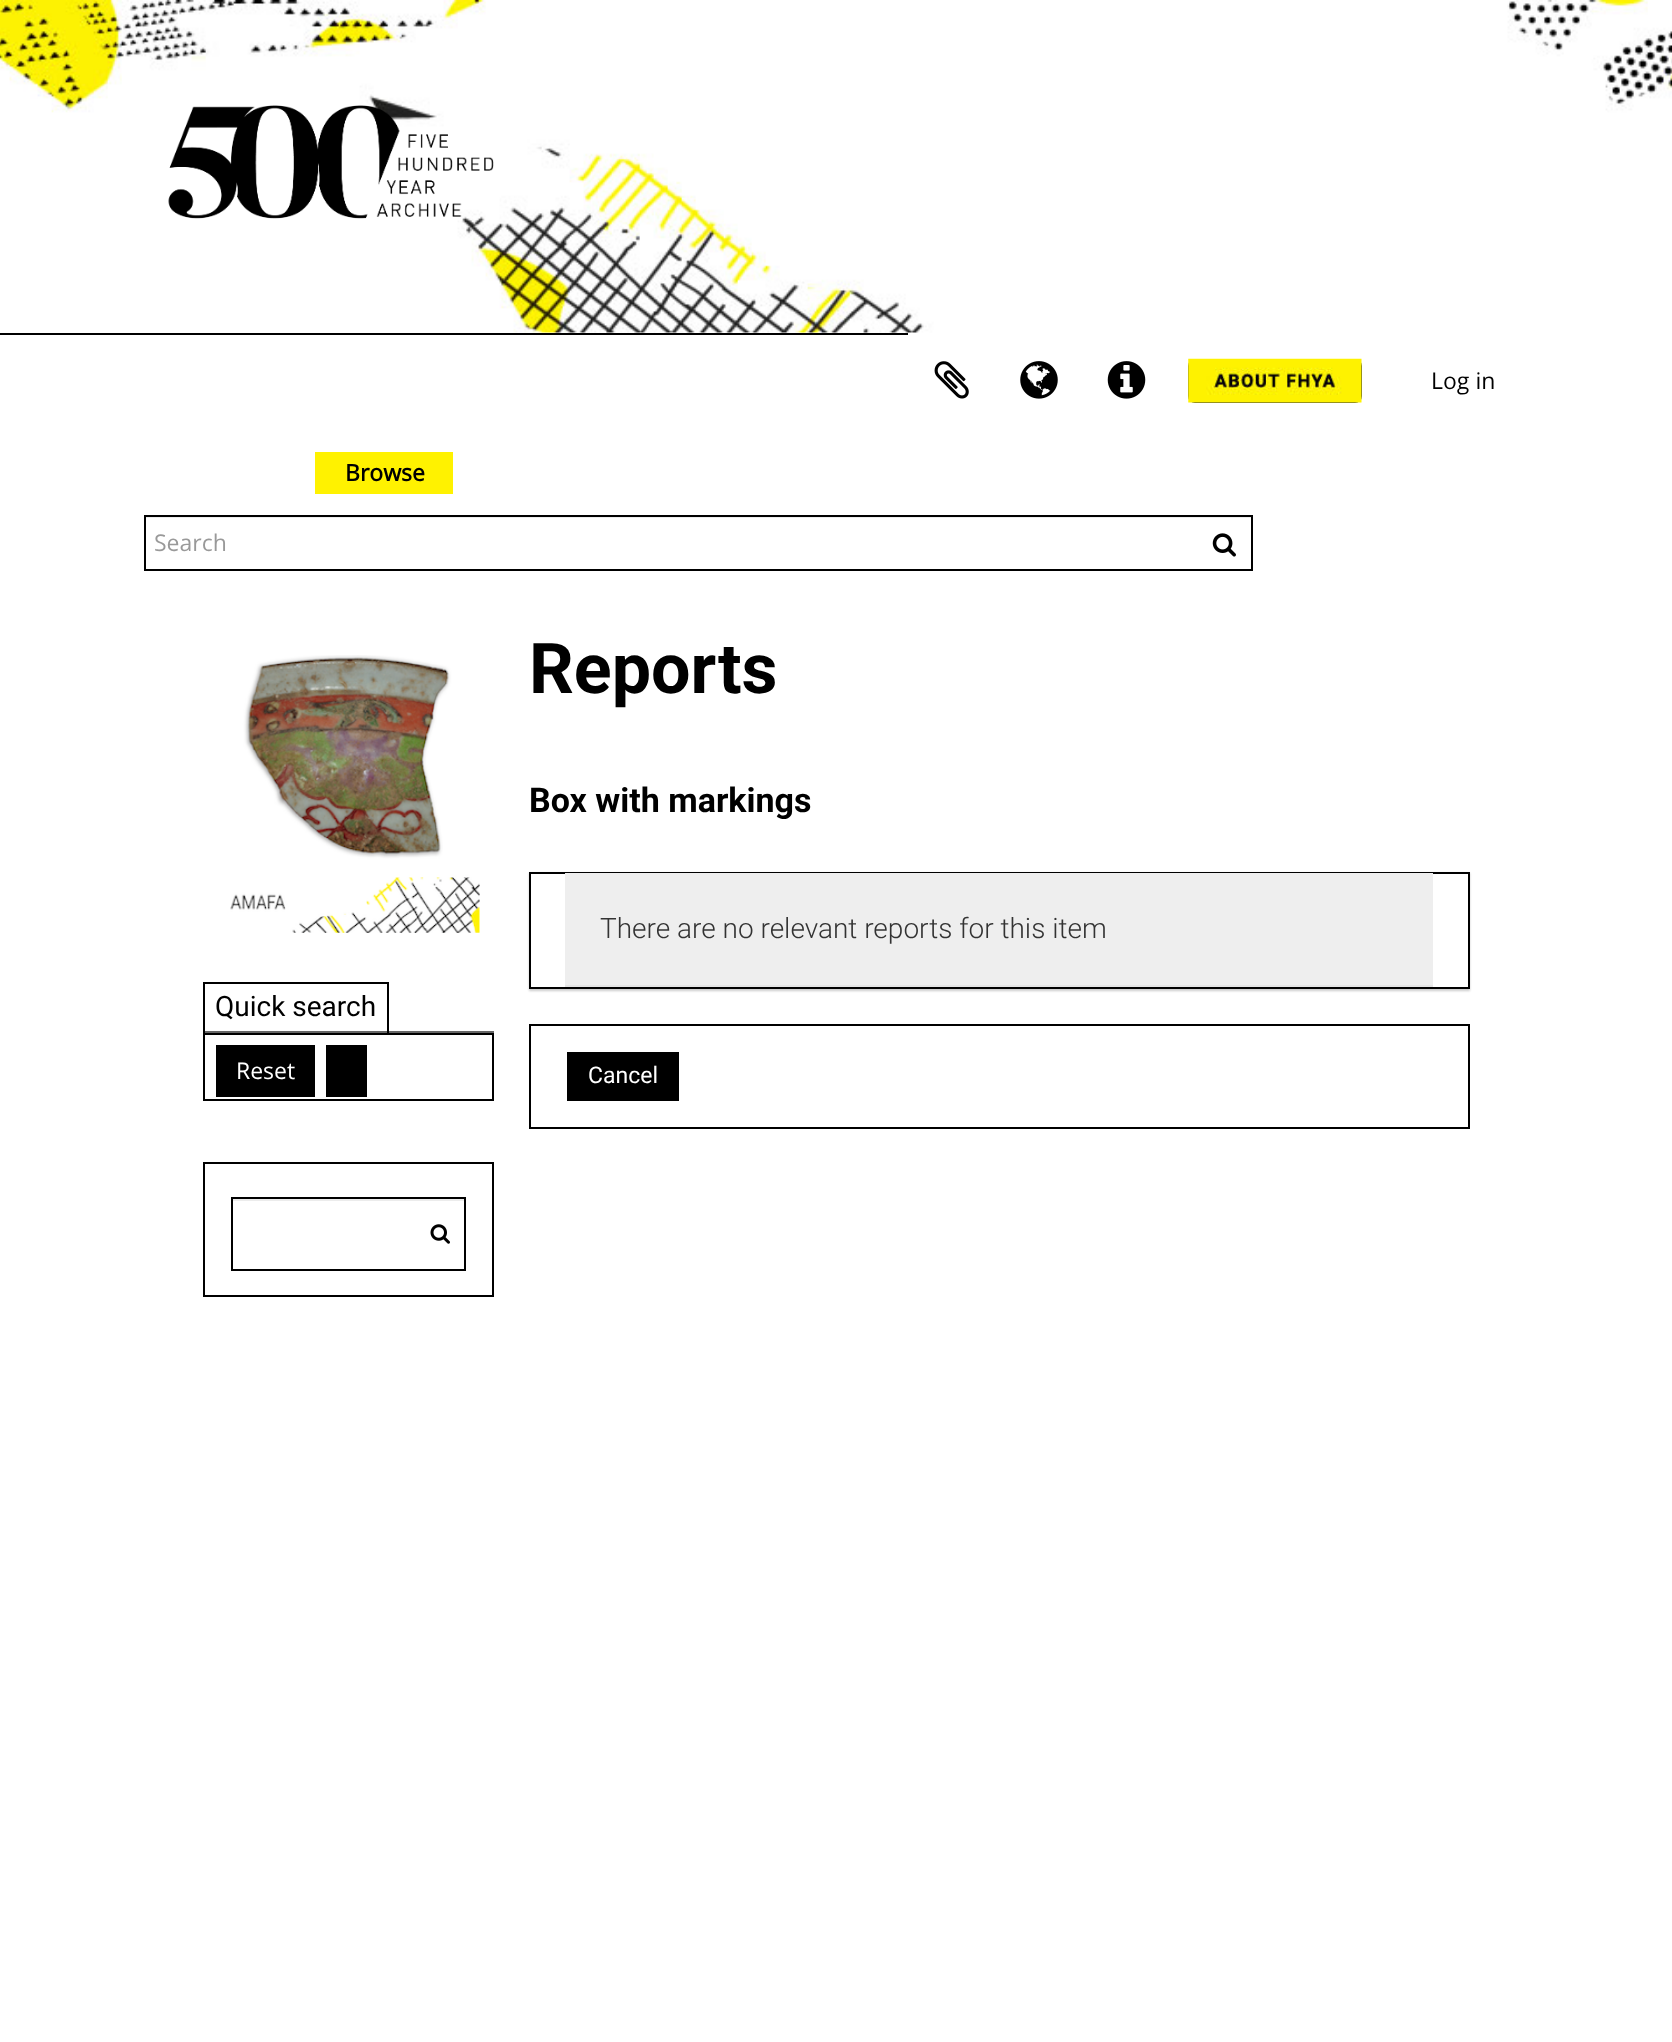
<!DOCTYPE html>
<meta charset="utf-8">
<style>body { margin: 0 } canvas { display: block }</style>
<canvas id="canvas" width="1672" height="2042"></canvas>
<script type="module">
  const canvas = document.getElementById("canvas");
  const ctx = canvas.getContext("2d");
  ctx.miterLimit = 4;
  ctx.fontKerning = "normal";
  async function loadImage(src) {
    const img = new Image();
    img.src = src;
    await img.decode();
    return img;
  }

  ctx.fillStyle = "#ffffff";
  ctx.fillRect(0, 0, 1672, 2042);
  ctx.fillStyle = "#000000";
  ctx.fillRect(0, 333, 908, 2);
  ctx.drawImage(await loadImage("img1.png"), 0, 0, 1672, 333);
  ctx.drawImage(await loadImage("img2.png"), 168, 105, 326, 114);
  ctx.drawImage(await loadImage("img3.png"), 934, 361, 35, 38);
  ctx.drawImage(await loadImage("img4.png"), 1020, 361, 38, 38);
  ctx.drawImage(await loadImage("img5.png"), 1107, 361, 39, 38);
  ctx.fillStyle = "#333333";
  ctx.beginPath();
  ctx.roundRect(1188, 359, 174, 44, 7);
  ctx.fill();
  ctx.drawImage(await loadImage("img6.png"), 1188, 358, 174, 45);
  ctx.font = "23px Open Sans";
  ctx.fillStyle = "#000000";
  ctx.fillText("Log in", 1431, 389);
  ctx.fillStyle = "#fff200";
  ctx.fillRect(315, 452, 138, 42);
  ctx.font = "bold 23px Open Sans";
  ctx.fillStyle = "#000000";
  ctx.fillText("Browse", 345, 481);
  ctx.fillStyle = "#ececec";
  ctx.fillRect(145, 517, 1106, 1);
  ctx.strokeStyle = "#000000";
  ctx.lineWidth = 2;
  ctx.strokeRect(145, 516, 1107, 54);
  ctx.font = "23px Open Sans";
  ctx.fillStyle = "#999999";
  ctx.fillText("Search", 154, 551);
  ctx.drawImage(await loadImage("img7.png"), 1212, 533, 24, 24);
  ctx.drawImage(await loadImage("img8.png"), 230, 655, 250, 278);
  ctx.fillStyle = "#666666";
  ctx.fillRect(203, 1031, 291, 2);
  ctx.fillStyle = "#000000";
  ctx.fillRect(203, 982, 186, 2);
  ctx.fillRect(387, 982, 2, 51);
  ctx.fillRect(203, 982, 2, 51);
  ctx.font = "28px Roboto";
  ctx.fillText("Quick search", 215, 1016);
  ctx.strokeRect(204, 1034, 289, 66);
  ctx.fillRect(216, 1045, 99, 52);
  ctx.font = "23px Open Sans";
  ctx.fillStyle = "#ffffff";
  ctx.fillText("Reset", 236, 1079);
  ctx.fillStyle = "#000000";
  ctx.fillRect(326, 1045, 41, 52);
  ctx.strokeRect(204, 1163, 289, 133);
  ctx.fillStyle = "#ececec";
  ctx.fillRect(233, 1199, 231, 2);
  ctx.strokeRect(232, 1198, 233, 72);
  ctx.drawImage(await loadImage("img9.png"), 430, 1224, 20, 20);
  ctx.font = "bold 70px Roboto";
  ctx.fillStyle = "#000000";
  ctx.fillText("Reports", 529, 693);
  ctx.font = "bold 34px Roboto";
  ctx.fillText("Box with markings", 529, 812);
  ctx.fillStyle = "rgba(0, 0, 0, 0.2)";
  ctx.filter = "blur(1px)";
  ctx.beginPath();
  ctx.rect(529, 873, 941, 118);
  ctx.fill();
  ctx.filter = "none";
  ctx.fillStyle = "#ffffff";
  ctx.beginPath();
  ctx.rect(530, 873, 939, 115);
  ctx.fill();
  ctx.stroke();
  ctx.fillStyle = "#eeeeee";
  ctx.fillRect(565, 873, 868, 112);
  ctx.fillStyle = "#e5e5e5";
  ctx.fillRect(565, 985, 868, 2);
  ctx.font = "300 28px Roboto";
  ctx.fillStyle = "#333333";
  ctx.fillText("There are no relevant reports for this item", 600, 938);
  ctx.strokeRect(530, 1025, 939, 103);
  ctx.fillStyle = "#000000";
  ctx.fillRect(567, 1052, 112, 49);
  ctx.font = "23px Roboto";
  ctx.fillStyle = "#ffffff";
  ctx.fillText("Cancel", 588, 1083);
</script>
